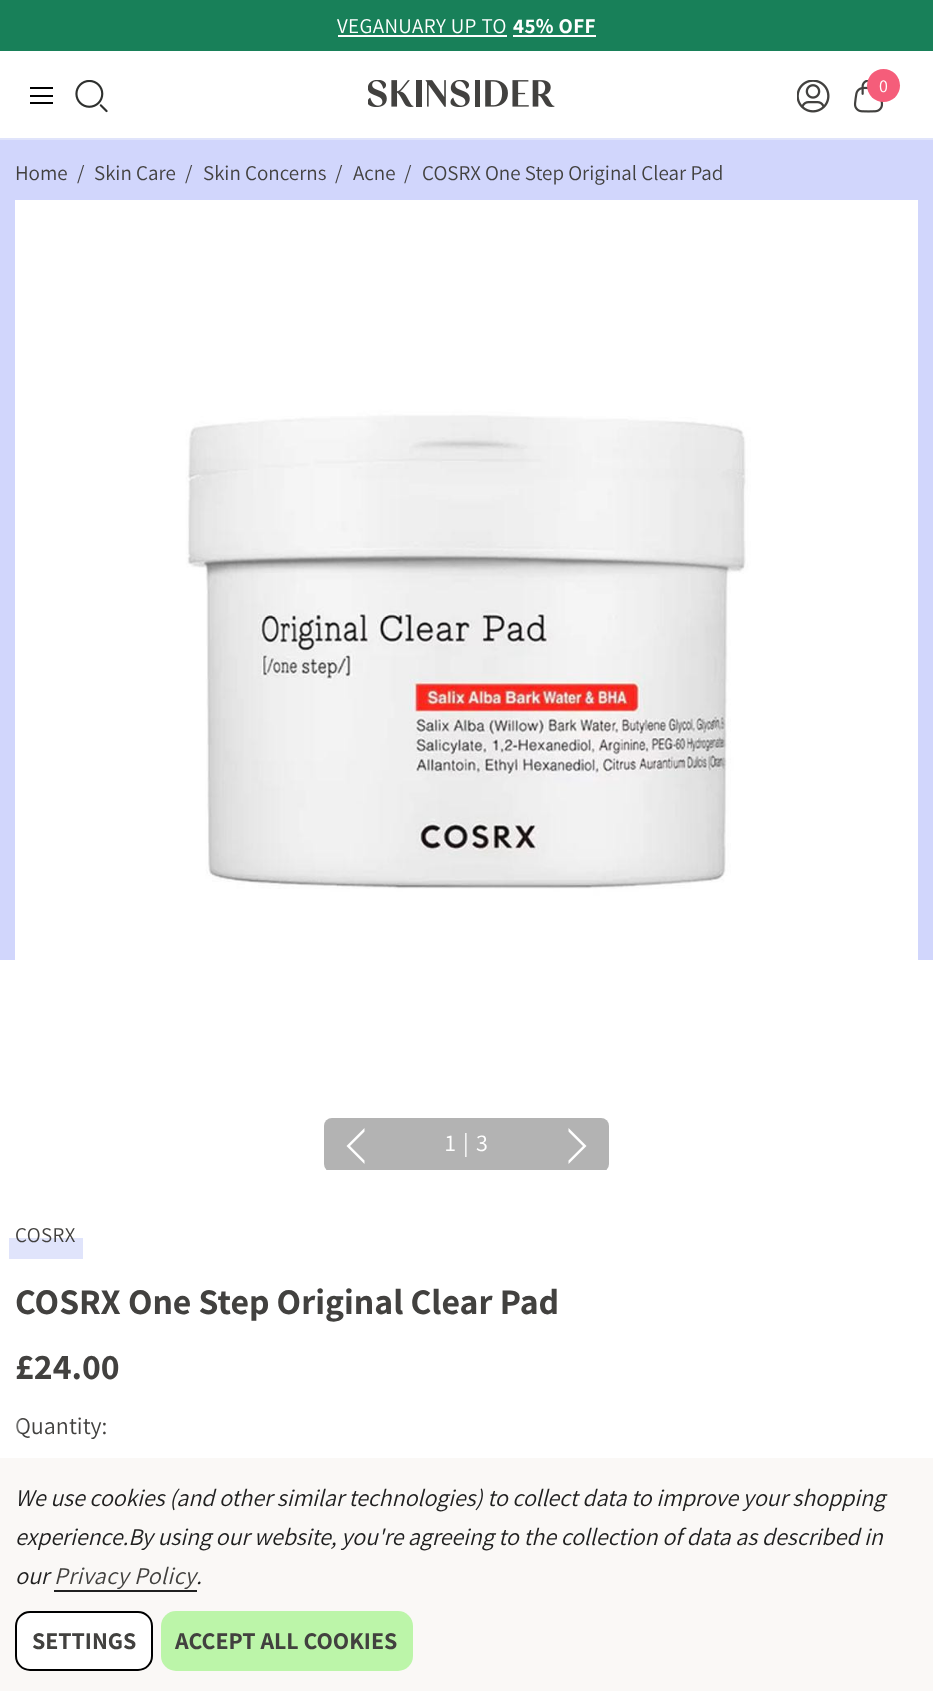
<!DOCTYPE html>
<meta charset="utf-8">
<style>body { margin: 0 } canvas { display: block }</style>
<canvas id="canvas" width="933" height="1691"></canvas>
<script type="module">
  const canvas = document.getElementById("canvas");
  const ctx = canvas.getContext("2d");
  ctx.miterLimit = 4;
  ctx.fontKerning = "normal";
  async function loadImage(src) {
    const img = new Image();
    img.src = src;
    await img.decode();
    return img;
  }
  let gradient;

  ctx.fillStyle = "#ffffff";
  ctx.fillRect(0, 0, 933, 1691);
  ctx.fillStyle = "#188059";
  ctx.fillRect(0, 0, 933, 51);
  ctx.letterSpacing = "0.4px";
  ctx.font = "200 21px Assistant";
  ctx.fillStyle = "#ffffff";
  ctx.fillText("VEGANUARY UP TO", 337, 33);
  ctx.fillRect(338, 35, 169, 2);
  ctx.font = "bold 21px Assistant";
  ctx.fillText("45% OFF", 513, 33);
  ctx.fillRect(513, 35, 83, 2);
  ctx.fillStyle = "#e0e4fb";
  ctx.fillRect(0, 138, 933, 2);
  ctx.fillStyle = "#000000";
  ctx.fillRect(30, 95, 23, 2);
  ctx.fillRect(30, 87, 23, 2);
  ctx.fillRect(30, 102, 23, 2);
  ctx.drawImage(await loadImage("img1.png"), 75, 80, 33, 33);
  ctx.drawImage(await loadImage("img2.png"), 368, 80, 187, 27);
  ctx.drawImage(await loadImage("img3.png"), 797, 80, 33, 33);
  ctx.drawImage(await loadImage("img4.png"), 853, 80, 31, 33);
  ctx.fillStyle = "#f55d7a";
  ctx.beginPath();
  ctx.arc(883.5, 85.5, 16.5, 0, Math.PI * 2);
  ctx.fill();
  ctx.letterSpacing = "0px";
  ctx.font = "200 18px Assistant";
  ctx.fillStyle = "#ffffff";
  ctx.fillText("0", 879, 92);
  ctx.fillStyle = "#d1d6fc";
  ctx.fillRect(0, 140, 933, 820);
  ctx.font = "200 21px Assistant";
  ctx.fillStyle = "#42413f";
  ctx.fillText("Home", 15, 180);
  ctx.fillText("/", 77, 180);
  ctx.fillText("Skin Care", 94, 180);
  ctx.fillText("/", 185, 180);
  ctx.fillText("Skin Concerns", 203, 180);
  ctx.fillText("/", 335, 180);
  ctx.fillText("Acne", 353, 180);
  ctx.fillText("/", 404, 180);
  ctx.fillText("COSRX One Step Original Clear Pad", 422, 180);
  ctx.drawImage(await loadImage("img5.png"), 15, 200, 903, 760);
  ctx.save();
  ctx.beginPath();
  ctx.rect(15, 200, 903, 970);
  ctx.clip();
  ctx.fillStyle = "#b3b3b3";
  ctx.beginPath();
  ctx.roundRect(324, 1118, 285, 54, 8);
  ctx.fill();
  ctx.restore();
  ctx.fillStyle = "#ffffff";
  ctx.beginPath();
  ctx.moveTo(350, 1146);
  ctx.lineTo(364.5, 1131.5);
  ctx.lineTo(364.5, 1128);
  ctx.lineTo(346.5, 1146);
  ctx.lineTo(364.5, 1164);
  ctx.lineTo(364.5, 1160.5);
  ctx.closePath();
  ctx.fill();
  ctx.font = "200 24px Assistant";
  ctx.fillText("1", 445, 1151);
  ctx.fillText("|", 463, 1151);
  ctx.fillText("3", 476, 1151);
  ctx.beginPath();
  ctx.moveTo(583, 1146);
  ctx.lineTo(568.5, 1160.5);
  ctx.lineTo(568.5, 1164);
  ctx.lineTo(586.5, 1146);
  ctx.lineTo(568.5, 1128);
  ctx.lineTo(568.5, 1131.5);
  ctx.closePath();
  ctx.fill();
  ctx.fillStyle = "#e0e4fb";
  ctx.fillRect(9, 1238, 74, 21);
  ctx.letterSpacing = "0.4px";
  ctx.font = "200 21px Assistant";
  ctx.fillStyle = "#42413f";
  ctx.fillText("COSRX", 15, 1242);
  ctx.letterSpacing = "0px";
  ctx.font = "bold 36px Assistant";
  ctx.fillText("COSRX One Step Original Clear Pad", 15, 1314);
  ctx.fillText("£24.00", 15, 1379);
  ctx.font = "200 24px Assistant";
  ctx.fillText("Quantity:", 15, 1434);
  gradient = ctx.createLinearGradient(0, 1424, 21, 1424);
  gradient.addColorStop(0, "#ffffff");
  gradient.addColorStop(1, "rgba(255, 255, 255, 0.1)");
  ctx.fillStyle = gradient;
  ctx.fillRect(16, 1418, 5, 16);
  ctx.fillStyle = "#faf8f6";
  ctx.fillRect(0, 1458, 933, 233);
  ctx.letterSpacing = "-0.08px";
  ctx.font = "italic 200 24px Assistant";
  ctx.fillStyle = "#202020";
  ctx.fillText("We use cookies (and other similar technologies) to collect data to improve your shopping", 15, 1506);
  ctx.fillText("experience.By using our website, you're agreeing to the collection of data as described in", 15, 1545);
  ctx.fillText("our", 15, 1584);
  ctx.letterSpacing = "0.4px";
  ctx.fillStyle = "#42413f";
  ctx.fillText("Privacy Policy", 54, 1584);
  ctx.letterSpacing = "-0.08px";
  ctx.fillStyle = "#202020";
  ctx.fillText(".", 196, 1584);
  ctx.fillRect(54, 1590, 143, 2);
  ctx.fillStyle = "#ffffff";
  ctx.beginPath();
  ctx.roundRect(16, 1612, 136, 58, 14);
  ctx.fill();
  ctx.strokeStyle = "#000000";
  ctx.lineWidth = 2;
  ctx.stroke();
  ctx.letterSpacing = "0px";
  ctx.font = "bold 24px Assistant";
  ctx.fillStyle = "#42413f";
  ctx.fillText("SETTINGS", 32, 1649);
  ctx.fillStyle = "#bcf5a9";
  ctx.beginPath();
  ctx.roundRect(161, 1611, 252, 60, 15);
  ctx.fill();
  ctx.fillStyle = "#42413f";
  ctx.fillText("ACCEPT ALL COOKIES", 175, 1649);
</script>
